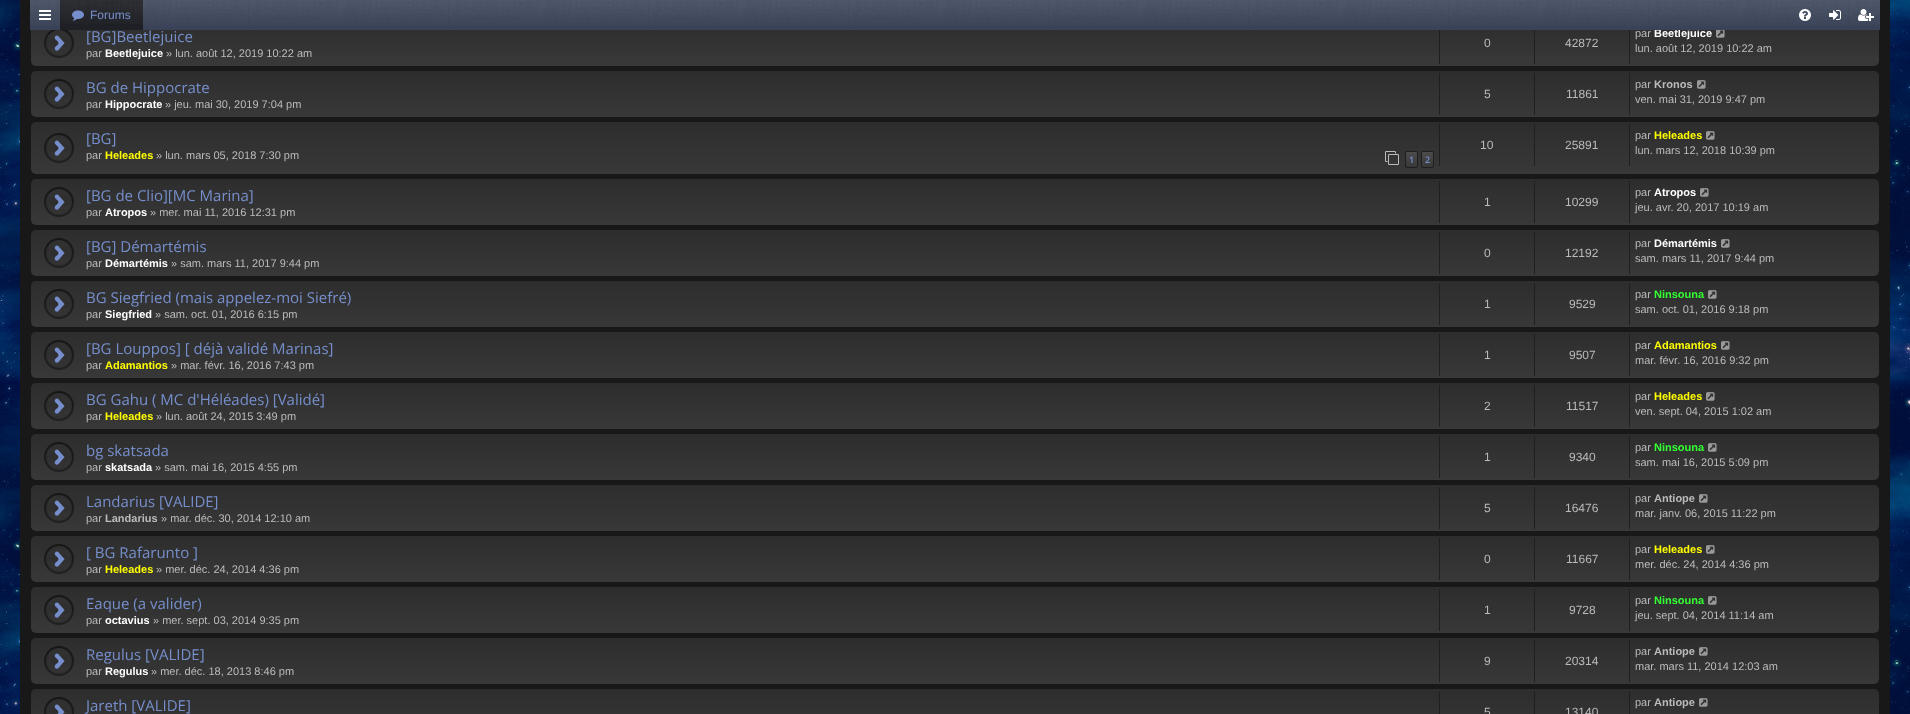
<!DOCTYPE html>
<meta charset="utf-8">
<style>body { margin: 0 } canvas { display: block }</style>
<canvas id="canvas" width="1910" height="714"></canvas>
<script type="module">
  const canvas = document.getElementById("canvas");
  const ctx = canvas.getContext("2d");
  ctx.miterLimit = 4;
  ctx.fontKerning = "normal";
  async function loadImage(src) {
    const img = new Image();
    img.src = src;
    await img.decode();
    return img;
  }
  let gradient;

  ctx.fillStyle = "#ffffff";
  ctx.fillRect(0, 0, 1910, 714);
  ctx.drawImage(await loadImage("img1.png"), 0, 0, 1910, 714);
  ctx.fillStyle = "#181818";
  ctx.fillRect(20, 0, 1870, 714);
  ctx.fillStyle = "#383838";
  ctx.beginPath();
  ctx.roundRect(31, 20, 1848, 46, 5);
  ctx.fill();
  gradient = ctx.createLinearGradient(955, 20, 955, 66);
  gradient.addColorStop(0, "rgba(0, 0, 0, 0.2)");
  gradient.addColorStop(1, "rgba(0, 0, 0, 0)");
  ctx.fillStyle = gradient;
  ctx.fillRect(31, 30, 1848, 26);
  ctx.fillStyle = "#1f1f1f";
  ctx.fillRect(1439, 22, 1, 42);
  ctx.fillRect(1534, 22, 1, 42);
  ctx.fillRect(1629, 22, 1, 42);
  ctx.font = "bold 11px Liberation Sans";
  ctx.fillStyle = "#ffffff";
  ctx.fillText("Beetlejuice", 1654, 37);
  ctx.fillStyle = "#394257";
  ctx.fillRect(30, 0, 1850, 30);
  ctx.drawImage(await loadImage("img2.png"), 30, 0, 1850, 26);
  ctx.drawImage(await loadImage("img3.png"), 39, 10, 12, 10);
  ctx.fillStyle = "#1f2025";
  ctx.fillRect(60, 0, 83, 30);
  ctx.drawImage(await loadImage("img4.png"), 60, 0, 83, 24);
  ctx.drawImage(await loadImage("img5.png"), 72, 10, 12, 11);
  ctx.font = "12px Liberation Sans";
  ctx.fillStyle = "#768fcc";
  ctx.fillText("Forums", 90, 19);
  ctx.drawImage(await loadImage("img6.png"), 1799, 9, 12, 12);
  ctx.drawImage(await loadImage("img7.png"), 1829, 10, 12, 10);
  ctx.drawImage(await loadImage("img8.png"), 1858, 9, 16, 12);
  ctx.drawImage(await loadImage("img9.png"), 44, 30, 30, 28);
  ctx.font = "15px Open Sans";
  ctx.fillText("[BG]Beetlejuice", 86, 42);
  ctx.font = "11px Liberation Sans";
  ctx.fillStyle = "#bbbbbb";
  ctx.fillText("par", 86, 57);
  ctx.font = "bold 11px Liberation Sans";
  ctx.fillStyle = "#ffffff";
  ctx.fillText("Beetlejuice", 105, 57);
  ctx.font = "11px Liberation Sans";
  ctx.fillStyle = "#bbbbbb";
  ctx.fillText("» lun. août 12, 2019 10:22 am", 166, 57);
  ctx.font = "12px Liberation Sans";
  ctx.fillText("0", 1484, 47);
  ctx.fillText("42872", 1565, 47);
  ctx.font = "11px Liberation Sans";
  ctx.fillText("par", 1635, 37);
  ctx.drawImage(await loadImage("img10.png"), 1716, 30, 9, 8);
  ctx.fillText("lun. août 12, 2019 10:22 am", 1635, 52);
  ctx.fillStyle = "#383838";
  ctx.beginPath();
  ctx.roundRect(31, 71, 1848, 46, 5);
  ctx.fill();
  gradient = ctx.createLinearGradient(955, 71, 955, 117);
  gradient.addColorStop(0, "rgba(0, 0, 0, 0.2)");
  gradient.addColorStop(1, "rgba(0, 0, 0, 0)");
  ctx.fillStyle = gradient;
  ctx.beginPath();
  ctx.roundRect(31, 71, 1848, 46, 5);
  ctx.fill();
  ctx.drawImage(await loadImage("img11.png"), 44, 79, 30, 30);
  ctx.font = "15px Open Sans";
  ctx.fillStyle = "#768fcc";
  ctx.fillText("BG de Hippocrate", 86, 93);
  ctx.font = "11px Liberation Sans";
  ctx.fillStyle = "#bbbbbb";
  ctx.fillText("par", 86, 108);
  ctx.font = "bold 11px Liberation Sans";
  ctx.fillStyle = "#ffffff";
  ctx.fillText("Hippocrate", 105, 108);
  ctx.font = "11px Liberation Sans";
  ctx.fillStyle = "#bbbbbb";
  ctx.fillText("» jeu. mai 30, 2019 7:04 pm", 165, 108);
  ctx.fillStyle = "#1f1f1f";
  ctx.fillRect(1439, 73, 1, 42);
  ctx.font = "12px Liberation Sans";
  ctx.fillStyle = "#bbbbbb";
  ctx.fillText("5", 1484, 98);
  ctx.fillStyle = "#1f1f1f";
  ctx.fillRect(1534, 73, 1, 42);
  ctx.fillStyle = "#bbbbbb";
  ctx.fillText("11861", 1566, 98);
  ctx.fillStyle = "#1f1f1f";
  ctx.fillRect(1629, 73, 1, 42);
  ctx.font = "11px Liberation Sans";
  ctx.fillStyle = "#bbbbbb";
  ctx.fillText("par", 1635, 88);
  ctx.font = "bold 11px Liberation Sans";
  ctx.fillText("Kronos", 1654, 88);
  ctx.drawImage(await loadImage("img12.png"), 1697, 80, 9, 9);
  ctx.font = "11px Liberation Sans";
  ctx.fillText("ven. mai 31, 2019 9:47 pm", 1635, 103);
  ctx.fillStyle = "#383838";
  ctx.beginPath();
  ctx.roundRect(31, 122, 1848, 52, 5);
  ctx.fill();
  gradient = ctx.createLinearGradient(955, 122, 955, 174);
  gradient.addColorStop(0, "rgba(0, 0, 0, 0.2)");
  gradient.addColorStop(1, "rgba(0, 0, 0, 0)");
  ctx.fillStyle = gradient;
  ctx.beginPath();
  ctx.roundRect(31, 122, 1848, 52, 5);
  ctx.fill();
  ctx.drawImage(await loadImage("img13.png"), 44, 133, 30, 30);
  ctx.font = "15px Open Sans";
  ctx.fillStyle = "#768fcc";
  ctx.fillText("[BG]", 86, 144);
  ctx.font = "11px Liberation Sans";
  ctx.fillStyle = "#bbbbbb";
  ctx.fillText("par", 86, 159);
  ctx.font = "bold 11px Liberation Sans";
  ctx.fillStyle = "#ffff00";
  ctx.fillText("Heleades", 105, 159);
  ctx.font = "11px Liberation Sans";
  ctx.fillStyle = "#bbbbbb";
  ctx.fillText("» lun. mars 05, 2018 7:30 pm", 156, 159);
  ctx.drawImage(await loadImage("img14.png"), 1385, 151, 14, 14);
  ctx.save();
  ctx.beginPath();
  ctx.roundRect(1405, 151, 13, 17, 2);
  ctx.clip();
  gradient = ctx.createLinearGradient(1412, 152, 1412, 167);
  gradient.addColorStop(0, "#4c4c4c");
  gradient.addColorStop(1, "#383838");
  ctx.fillStyle = gradient;
  ctx.fillRect(1405, 152, 13, 15);
  ctx.restore();
  ctx.beginPath();
  ctx.roundRect(1405.5, 151.5, 12, 16, 1.5);
  ctx.strokeStyle = "#1f1f1f";
  ctx.stroke();
  ctx.font = "600 9px Open Sans";
  ctx.fillStyle = "#768fcc";
  ctx.fillText("1", 1409, 163);
  ctx.save();
  ctx.beginPath();
  ctx.roundRect(1421, 151, 13, 17, 2);
  ctx.clip();
  gradient = ctx.createLinearGradient(1428, 152, 1428, 167);
  gradient.addColorStop(0, "#4c4c4c");
  gradient.addColorStop(1, "#383838");
  ctx.fillStyle = gradient;
  ctx.fillRect(1421, 152, 13, 15);
  ctx.restore();
  ctx.beginPath();
  ctx.roundRect(1421.5, 151.5, 12, 16, 1.5);
  ctx.stroke();
  ctx.fillText("2", 1425, 163);
  ctx.fillStyle = "#1f1f1f";
  ctx.fillRect(1439, 124, 1, 42);
  ctx.font = "12px Liberation Sans";
  ctx.fillStyle = "#bbbbbb";
  ctx.fillText("10", 1480, 149);
  ctx.fillStyle = "#1f1f1f";
  ctx.fillRect(1534, 124, 1, 42);
  ctx.fillStyle = "#bbbbbb";
  ctx.fillText("25891", 1565, 149);
  ctx.fillStyle = "#1f1f1f";
  ctx.fillRect(1629, 124, 1, 42);
  ctx.font = "11px Liberation Sans";
  ctx.fillStyle = "#bbbbbb";
  ctx.fillText("par", 1635, 139);
  ctx.font = "bold 11px Liberation Sans";
  ctx.fillStyle = "#ffff00";
  ctx.fillText("Heleades", 1654, 139);
  ctx.drawImage(await loadImage("img15.png"), 1706, 131, 9, 9);
  ctx.font = "11px Liberation Sans";
  ctx.fillStyle = "#bbbbbb";
  ctx.fillText("lun. mars 12, 2018 10:39 pm", 1635, 154);
  ctx.fillStyle = "#383838";
  ctx.beginPath();
  ctx.roundRect(31, 179, 1848, 46, 5);
  ctx.fill();
  gradient = ctx.createLinearGradient(955, 179, 955, 225);
  gradient.addColorStop(0, "rgba(0, 0, 0, 0.2)");
  gradient.addColorStop(1, "rgba(0, 0, 0, 0)");
  ctx.fillStyle = gradient;
  ctx.beginPath();
  ctx.roundRect(31, 179, 1848, 46, 5);
  ctx.fill();
  ctx.drawImage(await loadImage("img11.png"), 44, 187, 30, 30);
  ctx.font = "15px Open Sans";
  ctx.fillStyle = "#768fcc";
  ctx.fillText("[BG de Clio][MC Marina]", 86, 201);
  ctx.font = "11px Liberation Sans";
  ctx.fillStyle = "#bbbbbb";
  ctx.fillText("par", 86, 216);
  ctx.font = "bold 11px Liberation Sans";
  ctx.fillStyle = "#ffffff";
  ctx.fillText("Atropos", 105, 216);
  ctx.font = "11px Liberation Sans";
  ctx.fillStyle = "#bbbbbb";
  ctx.fillText("» mer. mai 11, 2016 12:31 pm", 150, 216);
  ctx.fillStyle = "#1f1f1f";
  ctx.fillRect(1439, 181, 1, 42);
  ctx.font = "12px Liberation Sans";
  ctx.fillStyle = "#bbbbbb";
  ctx.fillText("1", 1484, 206);
  ctx.fillStyle = "#1f1f1f";
  ctx.fillRect(1534, 181, 1, 42);
  ctx.fillStyle = "#bbbbbb";
  ctx.fillText("10299", 1565, 206);
  ctx.fillStyle = "#1f1f1f";
  ctx.fillRect(1629, 181, 1, 42);
  ctx.font = "11px Liberation Sans";
  ctx.fillStyle = "#bbbbbb";
  ctx.fillText("par", 1635, 196);
  ctx.font = "bold 11px Liberation Sans";
  ctx.fillStyle = "#ffffff";
  ctx.fillText("Atropos", 1654, 196);
  ctx.drawImage(await loadImage("img12.png"), 1700, 188, 9, 9);
  ctx.font = "11px Liberation Sans";
  ctx.fillStyle = "#bbbbbb";
  ctx.fillText("jeu. avr. 20, 2017 10:19 am", 1635, 211);
  ctx.fillStyle = "#383838";
  ctx.beginPath();
  ctx.roundRect(31, 230, 1848, 46, 5);
  ctx.fill();
  gradient = ctx.createLinearGradient(955, 230, 955, 276);
  gradient.addColorStop(0, "rgba(0, 0, 0, 0.2)");
  gradient.addColorStop(1, "rgba(0, 0, 0, 0)");
  ctx.fillStyle = gradient;
  ctx.beginPath();
  ctx.roundRect(31, 230, 1848, 46, 5);
  ctx.fill();
  ctx.drawImage(await loadImage("img11.png"), 44, 238, 30, 30);
  ctx.font = "15px Open Sans";
  ctx.fillStyle = "#768fcc";
  ctx.fillText("[BG] Démartémis", 86, 252);
  ctx.font = "11px Liberation Sans";
  ctx.fillStyle = "#bbbbbb";
  ctx.fillText("par", 86, 267);
  ctx.font = "bold 11px Liberation Sans";
  ctx.fillStyle = "#ffffff";
  ctx.fillText("Démartémis", 105, 267);
  ctx.font = "11px Liberation Sans";
  ctx.fillStyle = "#bbbbbb";
  ctx.fillText("» sam. mars 11, 2017 9:44 pm", 171, 267);
  ctx.fillStyle = "#1f1f1f";
  ctx.fillRect(1439, 232, 1, 42);
  ctx.font = "12px Liberation Sans";
  ctx.fillStyle = "#bbbbbb";
  ctx.fillText("0", 1484, 257);
  ctx.fillStyle = "#1f1f1f";
  ctx.fillRect(1534, 232, 1, 42);
  ctx.fillStyle = "#bbbbbb";
  ctx.fillText("12192", 1565, 257);
  ctx.fillStyle = "#1f1f1f";
  ctx.fillRect(1629, 232, 1, 42);
  ctx.font = "11px Liberation Sans";
  ctx.fillStyle = "#bbbbbb";
  ctx.fillText("par", 1635, 247);
  ctx.font = "bold 11px Liberation Sans";
  ctx.fillStyle = "#ffffff";
  ctx.fillText("Démartémis", 1654, 247);
  ctx.drawImage(await loadImage("img12.png"), 1721, 239, 9, 9);
  ctx.font = "11px Liberation Sans";
  ctx.fillStyle = "#bbbbbb";
  ctx.fillText("sam. mars 11, 2017 9:44 pm", 1635, 262);
  ctx.fillStyle = "#383838";
  ctx.beginPath();
  ctx.roundRect(31, 281, 1848, 46, 5);
  ctx.fill();
  gradient = ctx.createLinearGradient(955, 281, 955, 327);
  gradient.addColorStop(0, "rgba(0, 0, 0, 0.2)");
  gradient.addColorStop(1, "rgba(0, 0, 0, 0)");
  ctx.fillStyle = gradient;
  ctx.beginPath();
  ctx.roundRect(31, 281, 1848, 46, 5);
  ctx.fill();
  ctx.drawImage(await loadImage("img11.png"), 44, 289, 30, 30);
  ctx.font = "15px Open Sans";
  ctx.fillStyle = "#768fcc";
  ctx.fillText("BG Siegfried (mais appelez-moi Siefré)", 86, 303);
  ctx.font = "11px Liberation Sans";
  ctx.fillStyle = "#bbbbbb";
  ctx.fillText("par", 86, 318);
  ctx.font = "bold 11px Liberation Sans";
  ctx.fillStyle = "#ffffff";
  ctx.fillText("Siegfried", 105, 318);
  ctx.font = "11px Liberation Sans";
  ctx.fillStyle = "#bbbbbb";
  ctx.fillText("» sam. oct. 01, 2016 6:15 pm", 155, 318);
  ctx.fillStyle = "#1f1f1f";
  ctx.fillRect(1439, 283, 1, 42);
  ctx.font = "12px Liberation Sans";
  ctx.fillStyle = "#bbbbbb";
  ctx.fillText("1", 1484, 308);
  ctx.fillStyle = "#1f1f1f";
  ctx.fillRect(1534, 283, 1, 42);
  ctx.fillStyle = "#bbbbbb";
  ctx.fillText("9529", 1569, 308);
  ctx.fillStyle = "#1f1f1f";
  ctx.fillRect(1629, 283, 1, 42);
  ctx.font = "11px Liberation Sans";
  ctx.fillStyle = "#bbbbbb";
  ctx.fillText("par", 1635, 298);
  ctx.font = "bold 11px Liberation Sans";
  ctx.fillStyle = "#33ff33";
  ctx.fillText("Ninsouna", 1654, 298);
  ctx.drawImage(await loadImage("img12.png"), 1708, 290, 9, 9);
  ctx.font = "11px Liberation Sans";
  ctx.fillStyle = "#bbbbbb";
  ctx.fillText("sam. oct. 01, 2016 9:18 pm", 1635, 313);
  ctx.fillStyle = "#383838";
  ctx.beginPath();
  ctx.roundRect(31, 332, 1848, 46, 5);
  ctx.fill();
  gradient = ctx.createLinearGradient(955, 332, 955, 378);
  gradient.addColorStop(0, "rgba(0, 0, 0, 0.2)");
  gradient.addColorStop(1, "rgba(0, 0, 0, 0)");
  ctx.fillStyle = gradient;
  ctx.beginPath();
  ctx.roundRect(31, 332, 1848, 46, 5);
  ctx.fill();
  ctx.drawImage(await loadImage("img11.png"), 44, 340, 30, 30);
  ctx.font = "15px Open Sans";
  ctx.fillStyle = "#768fcc";
  ctx.fillText("[BG Louppos] [ déjà validé Marinas]", 86, 354);
  ctx.font = "11px Liberation Sans";
  ctx.fillStyle = "#bbbbbb";
  ctx.fillText("par", 86, 369);
  ctx.font = "bold 11px Liberation Sans";
  ctx.fillStyle = "#ffff00";
  ctx.fillText("Adamantios", 105, 369);
  ctx.font = "11px Liberation Sans";
  ctx.fillStyle = "#bbbbbb";
  ctx.fillText("» mar. févr. 16, 2016 7:43 pm", 171, 369);
  ctx.fillStyle = "#1f1f1f";
  ctx.fillRect(1439, 334, 1, 42);
  ctx.font = "12px Liberation Sans";
  ctx.fillStyle = "#bbbbbb";
  ctx.fillText("1", 1484, 359);
  ctx.fillStyle = "#1f1f1f";
  ctx.fillRect(1534, 334, 1, 42);
  ctx.fillStyle = "#bbbbbb";
  ctx.fillText("9507", 1569, 359);
  ctx.fillStyle = "#1f1f1f";
  ctx.fillRect(1629, 334, 1, 42);
  ctx.font = "11px Liberation Sans";
  ctx.fillStyle = "#bbbbbb";
  ctx.fillText("par", 1635, 349);
  ctx.font = "bold 11px Liberation Sans";
  ctx.fillStyle = "#ffff00";
  ctx.fillText("Adamantios", 1654, 349);
  ctx.drawImage(await loadImage("img12.png"), 1721, 341, 9, 9);
  ctx.font = "11px Liberation Sans";
  ctx.fillStyle = "#bbbbbb";
  ctx.fillText("mar. févr. 16, 2016 9:32 pm", 1635, 364);
  ctx.fillStyle = "#383838";
  ctx.beginPath();
  ctx.roundRect(31, 383, 1848, 46, 5);
  ctx.fill();
  gradient = ctx.createLinearGradient(955, 383, 955, 429);
  gradient.addColorStop(0, "rgba(0, 0, 0, 0.2)");
  gradient.addColorStop(1, "rgba(0, 0, 0, 0)");
  ctx.fillStyle = gradient;
  ctx.beginPath();
  ctx.roundRect(31, 383, 1848, 46, 5);
  ctx.fill();
  ctx.drawImage(await loadImage("img11.png"), 44, 391, 30, 30);
  ctx.font = "15px Open Sans";
  ctx.fillStyle = "#768fcc";
  ctx.fillText("BG Gahu ( MC d'Héléades) [Validé]", 86, 405);
  ctx.font = "11px Liberation Sans";
  ctx.fillStyle = "#bbbbbb";
  ctx.fillText("par", 86, 420);
  ctx.font = "bold 11px Liberation Sans";
  ctx.fillStyle = "#ffff00";
  ctx.fillText("Heleades", 105, 420);
  ctx.font = "11px Liberation Sans";
  ctx.fillStyle = "#bbbbbb";
  ctx.fillText("» lun. août 24, 2015 3:49 pm", 156, 420);
  ctx.fillStyle = "#1f1f1f";
  ctx.fillRect(1439, 385, 1, 42);
  ctx.font = "12px Liberation Sans";
  ctx.fillStyle = "#bbbbbb";
  ctx.fillText("2", 1484, 410);
  ctx.fillStyle = "#1f1f1f";
  ctx.fillRect(1534, 385, 1, 42);
  ctx.fillStyle = "#bbbbbb";
  ctx.fillText("11517", 1566, 410);
  ctx.fillStyle = "#1f1f1f";
  ctx.fillRect(1629, 385, 1, 42);
  ctx.font = "11px Liberation Sans";
  ctx.fillStyle = "#bbbbbb";
  ctx.fillText("par", 1635, 400);
  ctx.font = "bold 11px Liberation Sans";
  ctx.fillStyle = "#ffff00";
  ctx.fillText("Heleades", 1654, 400);
  ctx.drawImage(await loadImage("img12.png"), 1706, 392, 9, 9);
  ctx.font = "11px Liberation Sans";
  ctx.fillStyle = "#bbbbbb";
  ctx.fillText("ven. sept. 04, 2015 1:02 am", 1635, 415);
  ctx.fillStyle = "#383838";
  ctx.beginPath();
  ctx.roundRect(31, 434, 1848, 46, 5);
  ctx.fill();
  gradient = ctx.createLinearGradient(955, 434, 955, 480);
  gradient.addColorStop(0, "rgba(0, 0, 0, 0.2)");
  gradient.addColorStop(1, "rgba(0, 0, 0, 0)");
  ctx.fillStyle = gradient;
  ctx.beginPath();
  ctx.roundRect(31, 434, 1848, 46, 5);
  ctx.fill();
  ctx.drawImage(await loadImage("img11.png"), 44, 442, 30, 30);
  ctx.font = "15px Open Sans";
  ctx.fillStyle = "#768fcc";
  ctx.fillText("bg skatsada", 86, 456);
  ctx.font = "11px Liberation Sans";
  ctx.fillStyle = "#bbbbbb";
  ctx.fillText("par", 86, 471);
  ctx.font = "bold 11px Liberation Sans";
  ctx.fillStyle = "#ffffff";
  ctx.fillText("skatsada", 105, 471);
  ctx.font = "11px Liberation Sans";
  ctx.fillStyle = "#bbbbbb";
  ctx.fillText("» sam. mai 16, 2015 4:55 pm", 155, 471);
  ctx.fillStyle = "#1f1f1f";
  ctx.fillRect(1439, 436, 1, 42);
  ctx.font = "12px Liberation Sans";
  ctx.fillStyle = "#bbbbbb";
  ctx.fillText("1", 1484, 461);
  ctx.fillStyle = "#1f1f1f";
  ctx.fillRect(1534, 436, 1, 42);
  ctx.fillStyle = "#bbbbbb";
  ctx.fillText("9340", 1569, 461);
  ctx.fillStyle = "#1f1f1f";
  ctx.fillRect(1629, 436, 1, 42);
  ctx.font = "11px Liberation Sans";
  ctx.fillStyle = "#bbbbbb";
  ctx.fillText("par", 1635, 451);
  ctx.font = "bold 11px Liberation Sans";
  ctx.fillStyle = "#33ff33";
  ctx.fillText("Ninsouna", 1654, 451);
  ctx.drawImage(await loadImage("img12.png"), 1708, 443, 9, 9);
  ctx.font = "11px Liberation Sans";
  ctx.fillStyle = "#bbbbbb";
  ctx.fillText("sam. mai 16, 2015 5:09 pm", 1635, 466);
  ctx.fillStyle = "#383838";
  ctx.beginPath();
  ctx.roundRect(31, 485, 1848, 46, 5);
  ctx.fill();
  gradient = ctx.createLinearGradient(955, 485, 955, 531);
  gradient.addColorStop(0, "rgba(0, 0, 0, 0.2)");
  gradient.addColorStop(1, "rgba(0, 0, 0, 0)");
  ctx.fillStyle = gradient;
  ctx.beginPath();
  ctx.roundRect(31, 485, 1848, 46, 5);
  ctx.fill();
  ctx.drawImage(await loadImage("img11.png"), 44, 493, 30, 30);
  ctx.font = "15px Open Sans";
  ctx.fillStyle = "#768fcc";
  ctx.fillText("Landarius [VALIDE]", 86, 507);
  ctx.font = "11px Liberation Sans";
  ctx.fillStyle = "#bbbbbb";
  ctx.fillText("par", 86, 522);
  ctx.font = "bold 11px Liberation Sans";
  ctx.fillText("Landarius", 105, 522);
  ctx.font = "11px Liberation Sans";
  ctx.fillText("» mar. déc. 30, 2014 12:10 am", 161, 522);
  ctx.fillStyle = "#1f1f1f";
  ctx.fillRect(1439, 487, 1, 42);
  ctx.font = "12px Liberation Sans";
  ctx.fillStyle = "#bbbbbb";
  ctx.fillText("5", 1484, 512);
  ctx.fillStyle = "#1f1f1f";
  ctx.fillRect(1534, 487, 1, 42);
  ctx.fillStyle = "#bbbbbb";
  ctx.fillText("16476", 1565, 512);
  ctx.fillStyle = "#1f1f1f";
  ctx.fillRect(1629, 487, 1, 42);
  ctx.font = "11px Liberation Sans";
  ctx.fillStyle = "#bbbbbb";
  ctx.fillText("par", 1635, 502);
  ctx.font = "bold 11px Liberation Sans";
  ctx.fillText("Antiope", 1654, 502);
  ctx.drawImage(await loadImage("img12.png"), 1699, 494, 9, 9);
  ctx.font = "11px Liberation Sans";
  ctx.fillText("mar. janv. 06, 2015 11:22 pm", 1635, 517);
  ctx.fillStyle = "#383838";
  ctx.beginPath();
  ctx.roundRect(31, 536, 1848, 46, 5);
  ctx.fill();
  gradient = ctx.createLinearGradient(955, 536, 955, 582);
  gradient.addColorStop(0, "rgba(0, 0, 0, 0.2)");
  gradient.addColorStop(1, "rgba(0, 0, 0, 0)");
  ctx.fillStyle = gradient;
  ctx.beginPath();
  ctx.roundRect(31, 536, 1848, 46, 5);
  ctx.fill();
  ctx.drawImage(await loadImage("img11.png"), 44, 544, 30, 30);
  ctx.font = "15px Open Sans";
  ctx.fillStyle = "#768fcc";
  ctx.fillText("[ BG Rafarunto ]", 86, 558);
  ctx.font = "11px Liberation Sans";
  ctx.fillStyle = "#bbbbbb";
  ctx.fillText("par", 86, 573);
  ctx.font = "bold 11px Liberation Sans";
  ctx.fillStyle = "#ffff00";
  ctx.fillText("Heleades", 105, 573);
  ctx.font = "11px Liberation Sans";
  ctx.fillStyle = "#bbbbbb";
  ctx.fillText("» mer. déc. 24, 2014 4:36 pm", 156, 573);
  ctx.fillStyle = "#1f1f1f";
  ctx.fillRect(1439, 538, 1, 42);
  ctx.font = "12px Liberation Sans";
  ctx.fillStyle = "#bbbbbb";
  ctx.fillText("0", 1484, 563);
  ctx.fillStyle = "#1f1f1f";
  ctx.fillRect(1534, 538, 1, 42);
  ctx.fillStyle = "#bbbbbb";
  ctx.fillText("11667", 1566, 563);
  ctx.fillStyle = "#1f1f1f";
  ctx.fillRect(1629, 538, 1, 42);
  ctx.font = "11px Liberation Sans";
  ctx.fillStyle = "#bbbbbb";
  ctx.fillText("par", 1635, 553);
  ctx.font = "bold 11px Liberation Sans";
  ctx.fillStyle = "#ffff00";
  ctx.fillText("Heleades", 1654, 553);
  ctx.drawImage(await loadImage("img12.png"), 1706, 545, 9, 9);
  ctx.font = "11px Liberation Sans";
  ctx.fillStyle = "#bbbbbb";
  ctx.fillText("mer. déc. 24, 2014 4:36 pm", 1635, 568);
  ctx.fillStyle = "#383838";
  ctx.beginPath();
  ctx.roundRect(31, 587, 1848, 46, 5);
  ctx.fill();
  gradient = ctx.createLinearGradient(955, 587, 955, 633);
  gradient.addColorStop(0, "rgba(0, 0, 0, 0.2)");
  gradient.addColorStop(1, "rgba(0, 0, 0, 0)");
  ctx.fillStyle = gradient;
  ctx.beginPath();
  ctx.roundRect(31, 587, 1848, 46, 5);
  ctx.fill();
  ctx.drawImage(await loadImage("img11.png"), 44, 595, 30, 30);
  ctx.font = "15px Open Sans";
  ctx.fillStyle = "#768fcc";
  ctx.fillText("Eaque (a valider)", 86, 609);
  ctx.font = "11px Liberation Sans";
  ctx.fillStyle = "#bbbbbb";
  ctx.fillText("par", 86, 624);
  ctx.font = "bold 11px Liberation Sans";
  ctx.fillStyle = "#ffffff";
  ctx.fillText("octavius", 105, 624);
  ctx.font = "11px Liberation Sans";
  ctx.fillStyle = "#bbbbbb";
  ctx.fillText("» mer. sept. 03, 2014 9:35 pm", 153, 624);
  ctx.fillStyle = "#1f1f1f";
  ctx.fillRect(1439, 589, 1, 42);
  ctx.font = "12px Liberation Sans";
  ctx.fillStyle = "#bbbbbb";
  ctx.fillText("1", 1484, 614);
  ctx.fillStyle = "#1f1f1f";
  ctx.fillRect(1534, 589, 1, 42);
  ctx.fillStyle = "#bbbbbb";
  ctx.fillText("9728", 1569, 614);
  ctx.fillStyle = "#1f1f1f";
  ctx.fillRect(1629, 589, 1, 42);
  ctx.font = "11px Liberation Sans";
  ctx.fillStyle = "#bbbbbb";
  ctx.fillText("par", 1635, 604);
  ctx.font = "bold 11px Liberation Sans";
  ctx.fillStyle = "#33ff33";
  ctx.fillText("Ninsouna", 1654, 604);
  ctx.drawImage(await loadImage("img12.png"), 1708, 596, 9, 9);
  ctx.font = "11px Liberation Sans";
  ctx.fillStyle = "#bbbbbb";
  ctx.fillText("jeu. sept. 04, 2014 11:14 am", 1635, 619);
  ctx.fillStyle = "#383838";
  ctx.beginPath();
  ctx.roundRect(31, 638, 1848, 46, 5);
  ctx.fill();
  gradient = ctx.createLinearGradient(955, 638, 955, 684);
  gradient.addColorStop(0, "rgba(0, 0, 0, 0.2)");
  gradient.addColorStop(1, "rgba(0, 0, 0, 0)");
  ctx.fillStyle = gradient;
  ctx.beginPath();
  ctx.roundRect(31, 638, 1848, 46, 5);
  ctx.fill();
  ctx.drawImage(await loadImage("img11.png"), 44, 646, 30, 30);
  ctx.font = "15px Open Sans";
  ctx.fillStyle = "#768fcc";
  ctx.fillText("Regulus [VALIDE]", 86, 660);
  ctx.font = "11px Liberation Sans";
  ctx.fillStyle = "#bbbbbb";
  ctx.fillText("par", 86, 675);
  ctx.font = "bold 11px Liberation Sans";
  ctx.fillStyle = "#ffffff";
  ctx.fillText("Regulus", 105, 675);
  ctx.font = "11px Liberation Sans";
  ctx.fillStyle = "#bbbbbb";
  ctx.fillText("» mer. déc. 18, 2013 8:46 pm", 151, 675);
  ctx.fillStyle = "#1f1f1f";
  ctx.fillRect(1439, 640, 1, 42);
  ctx.font = "12px Liberation Sans";
  ctx.fillStyle = "#bbbbbb";
  ctx.fillText("9", 1484, 665);
  ctx.fillStyle = "#1f1f1f";
  ctx.fillRect(1534, 640, 1, 42);
  ctx.fillStyle = "#bbbbbb";
  ctx.fillText("20314", 1565, 665);
  ctx.fillStyle = "#1f1f1f";
  ctx.fillRect(1629, 640, 1, 42);
  ctx.font = "11px Liberation Sans";
  ctx.fillStyle = "#bbbbbb";
  ctx.fillText("par", 1635, 655);
  ctx.font = "bold 11px Liberation Sans";
  ctx.fillText("Antiope", 1654, 655);
  ctx.drawImage(await loadImage("img12.png"), 1699, 647, 9, 9);
  ctx.font = "11px Liberation Sans";
  ctx.fillText("mar. mars 11, 2014 12:03 am", 1635, 670);
  ctx.fillStyle = "#383838";
  ctx.beginPath();
  ctx.roundRect(31, 689, 1848, 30, 5);
  ctx.fill();
  gradient = ctx.createLinearGradient(955, 689, 955, 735);
  gradient.addColorStop(0, "rgba(0, 0, 0, 0.2)");
  gradient.addColorStop(1, "rgba(0, 0, 0, 0)");
  ctx.fillStyle = gradient;
  ctx.beginPath();
  ctx.roundRect(31, 689, 1848, 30, 5);
  ctx.fill();
  ctx.drawImage(await loadImage("img16.png"), 44, 697, 30, 17);
  ctx.font = "15px Open Sans";
  ctx.fillStyle = "#768fcc";
  ctx.fillText("Jareth [VALIDE]", 86, 711);
  ctx.fillStyle = "#1f1f1f";
  ctx.fillRect(1439, 691, 1, 23);
  ctx.font = "12px Liberation Sans";
  ctx.fillStyle = "#bbbbbb";
  ctx.fillText("5", 1484, 716);
  ctx.fillStyle = "#1f1f1f";
  ctx.fillRect(1534, 691, 1, 23);
  ctx.fillStyle = "#bbbbbb";
  ctx.fillText("13140", 1565, 716);
  ctx.fillStyle = "#1f1f1f";
  ctx.fillRect(1629, 691, 1, 23);
  ctx.font = "11px Liberation Sans";
  ctx.fillStyle = "#bbbbbb";
  ctx.fillText("par", 1635, 706);
  ctx.font = "bold 11px Liberation Sans";
  ctx.fillText("Antiope", 1654, 706);
  ctx.drawImage(await loadImage("img12.png"), 1699, 698, 9, 9);
</script>
